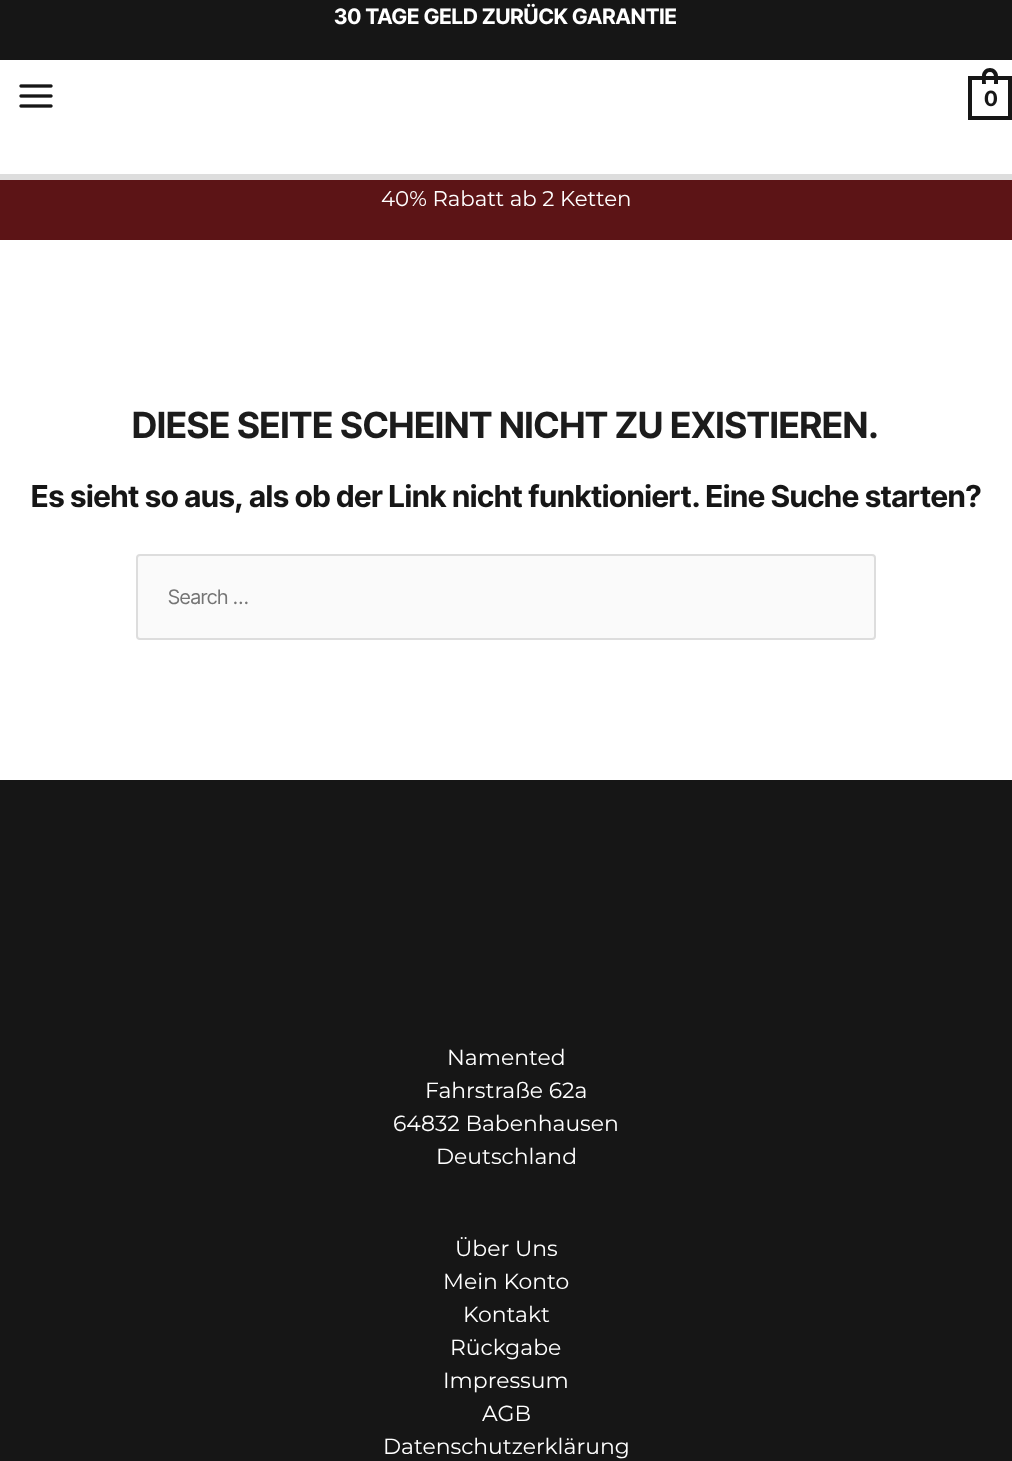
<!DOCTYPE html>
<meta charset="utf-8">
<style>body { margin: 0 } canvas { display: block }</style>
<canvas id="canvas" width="1012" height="1461"></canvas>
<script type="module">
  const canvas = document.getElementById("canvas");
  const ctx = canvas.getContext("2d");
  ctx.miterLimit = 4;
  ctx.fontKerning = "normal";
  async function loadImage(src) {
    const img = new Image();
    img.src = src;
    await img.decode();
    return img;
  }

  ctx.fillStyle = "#ffffff";
  ctx.fillRect(0, 0, 1012, 1461);
  ctx.fillStyle = "#161616";
  ctx.fillRect(0, 0, 1012, 60);
  ctx.font = "bold 21.3px Inter Tight";
  ctx.fillStyle = "#ffffff";
  ctx.fillText("30 TAGE GELD ZURÜCK GARANTIE", 334, 24);
  ctx.fillStyle = "#dddddd";
  ctx.fillRect(0, 174, 1012, 6);
  ctx.drawImage(await loadImage("img1.png"), 19, 84, 34, 24);
  ctx.beginPath();
  ctx.rect(970, 78, 40, 40);
  ctx.strokeStyle = "#161616";
  ctx.lineWidth = 4;
  ctx.stroke();
  ctx.fillStyle = "#161616";
  ctx.beginPath();
  ctx.moveTo(990, 68);
  ctx.bezierCurveTo(994, 68, 998, 71.5, 998, 76);
  ctx.lineTo(998, 84);
  ctx.lineTo(982, 84);
  ctx.lineTo(982, 76);
  ctx.bezierCurveTo(982, 71.5, 985.5, 68, 990, 68);
  ctx.closePath();
  ctx.moveTo(990, 72);
  ctx.bezierCurveTo(995.5, 72, 994, 80.5, 994, 84);
  ctx.lineTo(986, 84);
  ctx.bezierCurveTo(986, 80.5, 984, 72, 990, 72);
  ctx.closePath();
  ctx.fill("evenodd");
  ctx.font = "bold 21px Inter Tight";
  ctx.fillText("0", 984, 106);
  ctx.fillStyle = "#5c1416";
  ctx.fillRect(0, 180, 1012, 60);
  ctx.font = "21.3px Montserrat";
  ctx.fillStyle = "#ffffff";
  ctx.fillText("40% Rabatt ab 2 Ketten", 381, 206);
  ctx.font = "bold 36px Inter Tight";
  ctx.fillStyle = "#1c1c1c";
  ctx.fillText("DIESE SEITE SCHEINT NICHT ZU EXISTIEREN.", 132, 438);
  ctx.font = "bold 30.1px Inter Tight";
  ctx.fillStyle = "#161616";
  ctx.fillText("Es sieht so aus, als ob der Link nicht funktioniert. Eine Suche starten?", 31, 507);
  ctx.fillStyle = "#fafafa";
  ctx.beginPath();
  ctx.roundRect(137, 555, 738, 84, 3);
  ctx.fill();
  ctx.strokeStyle = "#dddddd";
  ctx.lineWidth = 2;
  ctx.stroke();
  ctx.font = "20px Inter Tight";
  ctx.fillStyle = "#757575";
  ctx.fillText("Search …", 168, 604);
  ctx.fillStyle = "#161616";
  ctx.fillRect(0, 780, 1012, 681);
  ctx.font = "21.9px Montserrat";
  ctx.fillStyle = "#ffffff";
  ctx.fillText("Namented", 447, 1065);
  ctx.fillText("Fahrstraße 62a", 425, 1098);
  ctx.fillText("64832 Babenhausen", 393, 1131);
  ctx.fillText("Deutschland", 436, 1164);
  ctx.fillText("Über Uns", 455, 1256);
  ctx.fillText("Mein Konto", 443, 1289);
  ctx.fillText("Kontakt", 463, 1322);
  ctx.fillText("Rückgabe", 450, 1355);
  ctx.fillText("Impressum", 443, 1388);
  ctx.fillText("AGB", 482, 1421);
  ctx.fillText("Datenschutzerklärung", 383, 1454);
</script>
